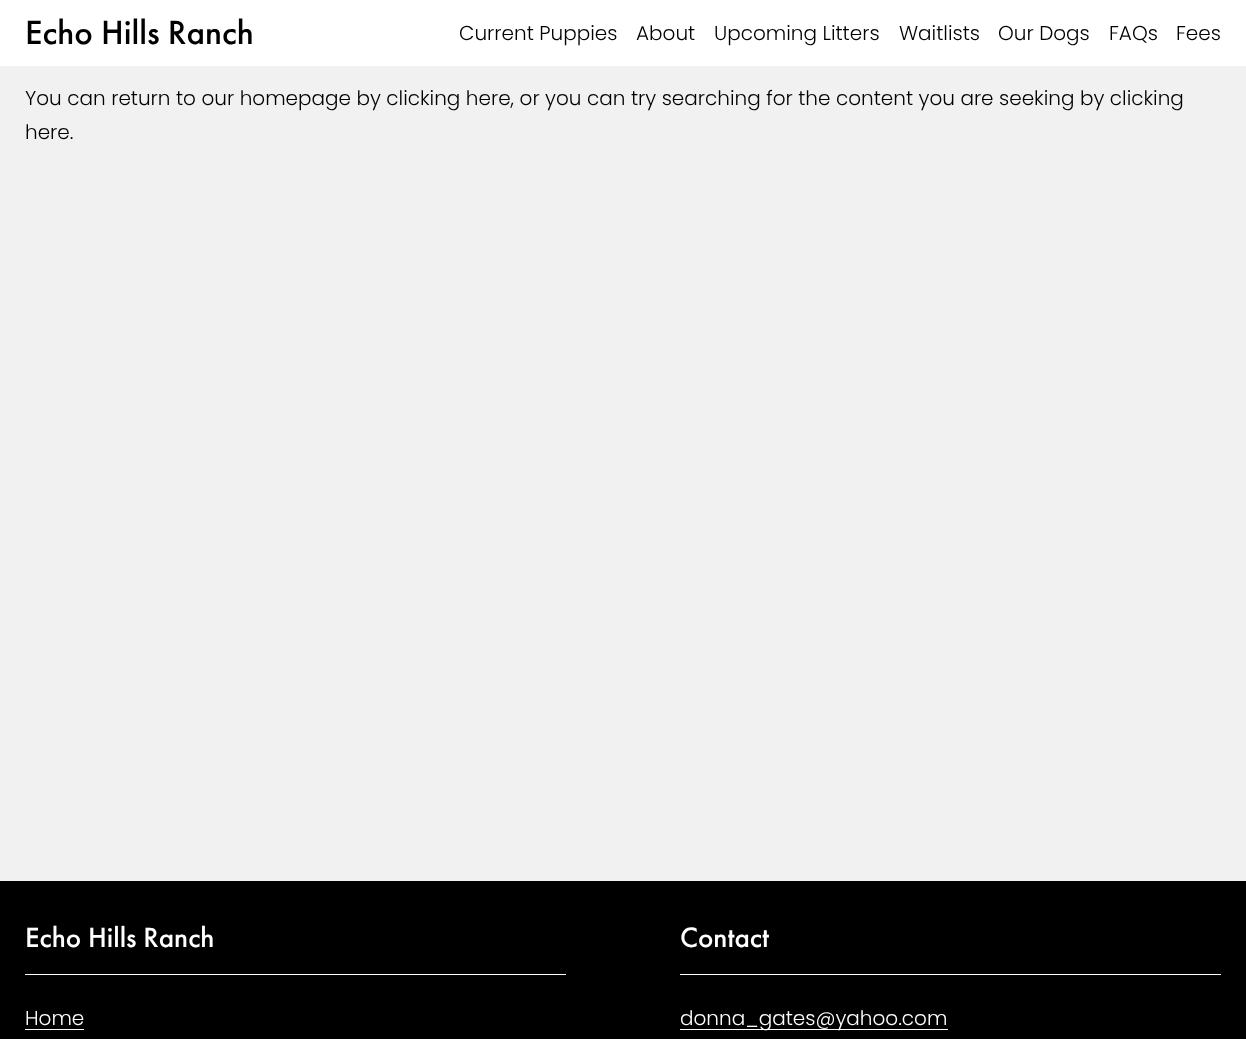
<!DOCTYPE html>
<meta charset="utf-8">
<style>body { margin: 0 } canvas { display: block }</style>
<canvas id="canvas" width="1246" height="1039"></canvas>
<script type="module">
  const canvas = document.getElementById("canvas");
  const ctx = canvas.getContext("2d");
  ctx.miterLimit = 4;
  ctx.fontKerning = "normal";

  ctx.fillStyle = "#f1f1f1";
  ctx.fillRect(0, 0, 1246, 1039);
  ctx.fillStyle = "#ffffff";
  ctx.fillRect(0, 0, 1246, 66);
  ctx.font = "500 35px Futura PT";
  ctx.fillStyle = "#000000";
  ctx.fillText("Echo Hills Ranch", 25, 44);
  ctx.font = "300 20px Poppins";
  ctx.fillText("Current Puppies", 459, 40);
  ctx.fillText("About", 636, 40);
  ctx.fillText("Upcoming Litters", 714, 40);
  ctx.fillText("Waitlists", 899, 40);
  ctx.fillText("Our Dogs", 998, 40);
  ctx.fillText("FAQs", 1109, 40);
  ctx.fillText("Fees", 1176, 40);
  ctx.fillText("You can return to our homepage by clicking here, or you can try searching for the content you are seeking by clicking", 25, 105);
  ctx.fillText("here.", 25, 139);
  ctx.fillRect(0, 881, 1246, 158);
  ctx.font = "500 29px Futura PT";
  ctx.fillStyle = "#ffffff";
  ctx.fillText("Echo Hills Ranch", 25, 947);
  ctx.fillText("Contact", 680, 947);
  ctx.fillRect(25, 974, 541, 1);
  ctx.fillRect(680, 974, 541, 1);
  ctx.font = "300 20px Poppins";
  ctx.fillText("Home", 25, 1025);
  ctx.fillRect(25, 1029, 59, 1);
  ctx.fillRect(680, 1029, 268, 1);
  ctx.fillText("donna_gates@yahoo.com", 680, 1025);
</script>
